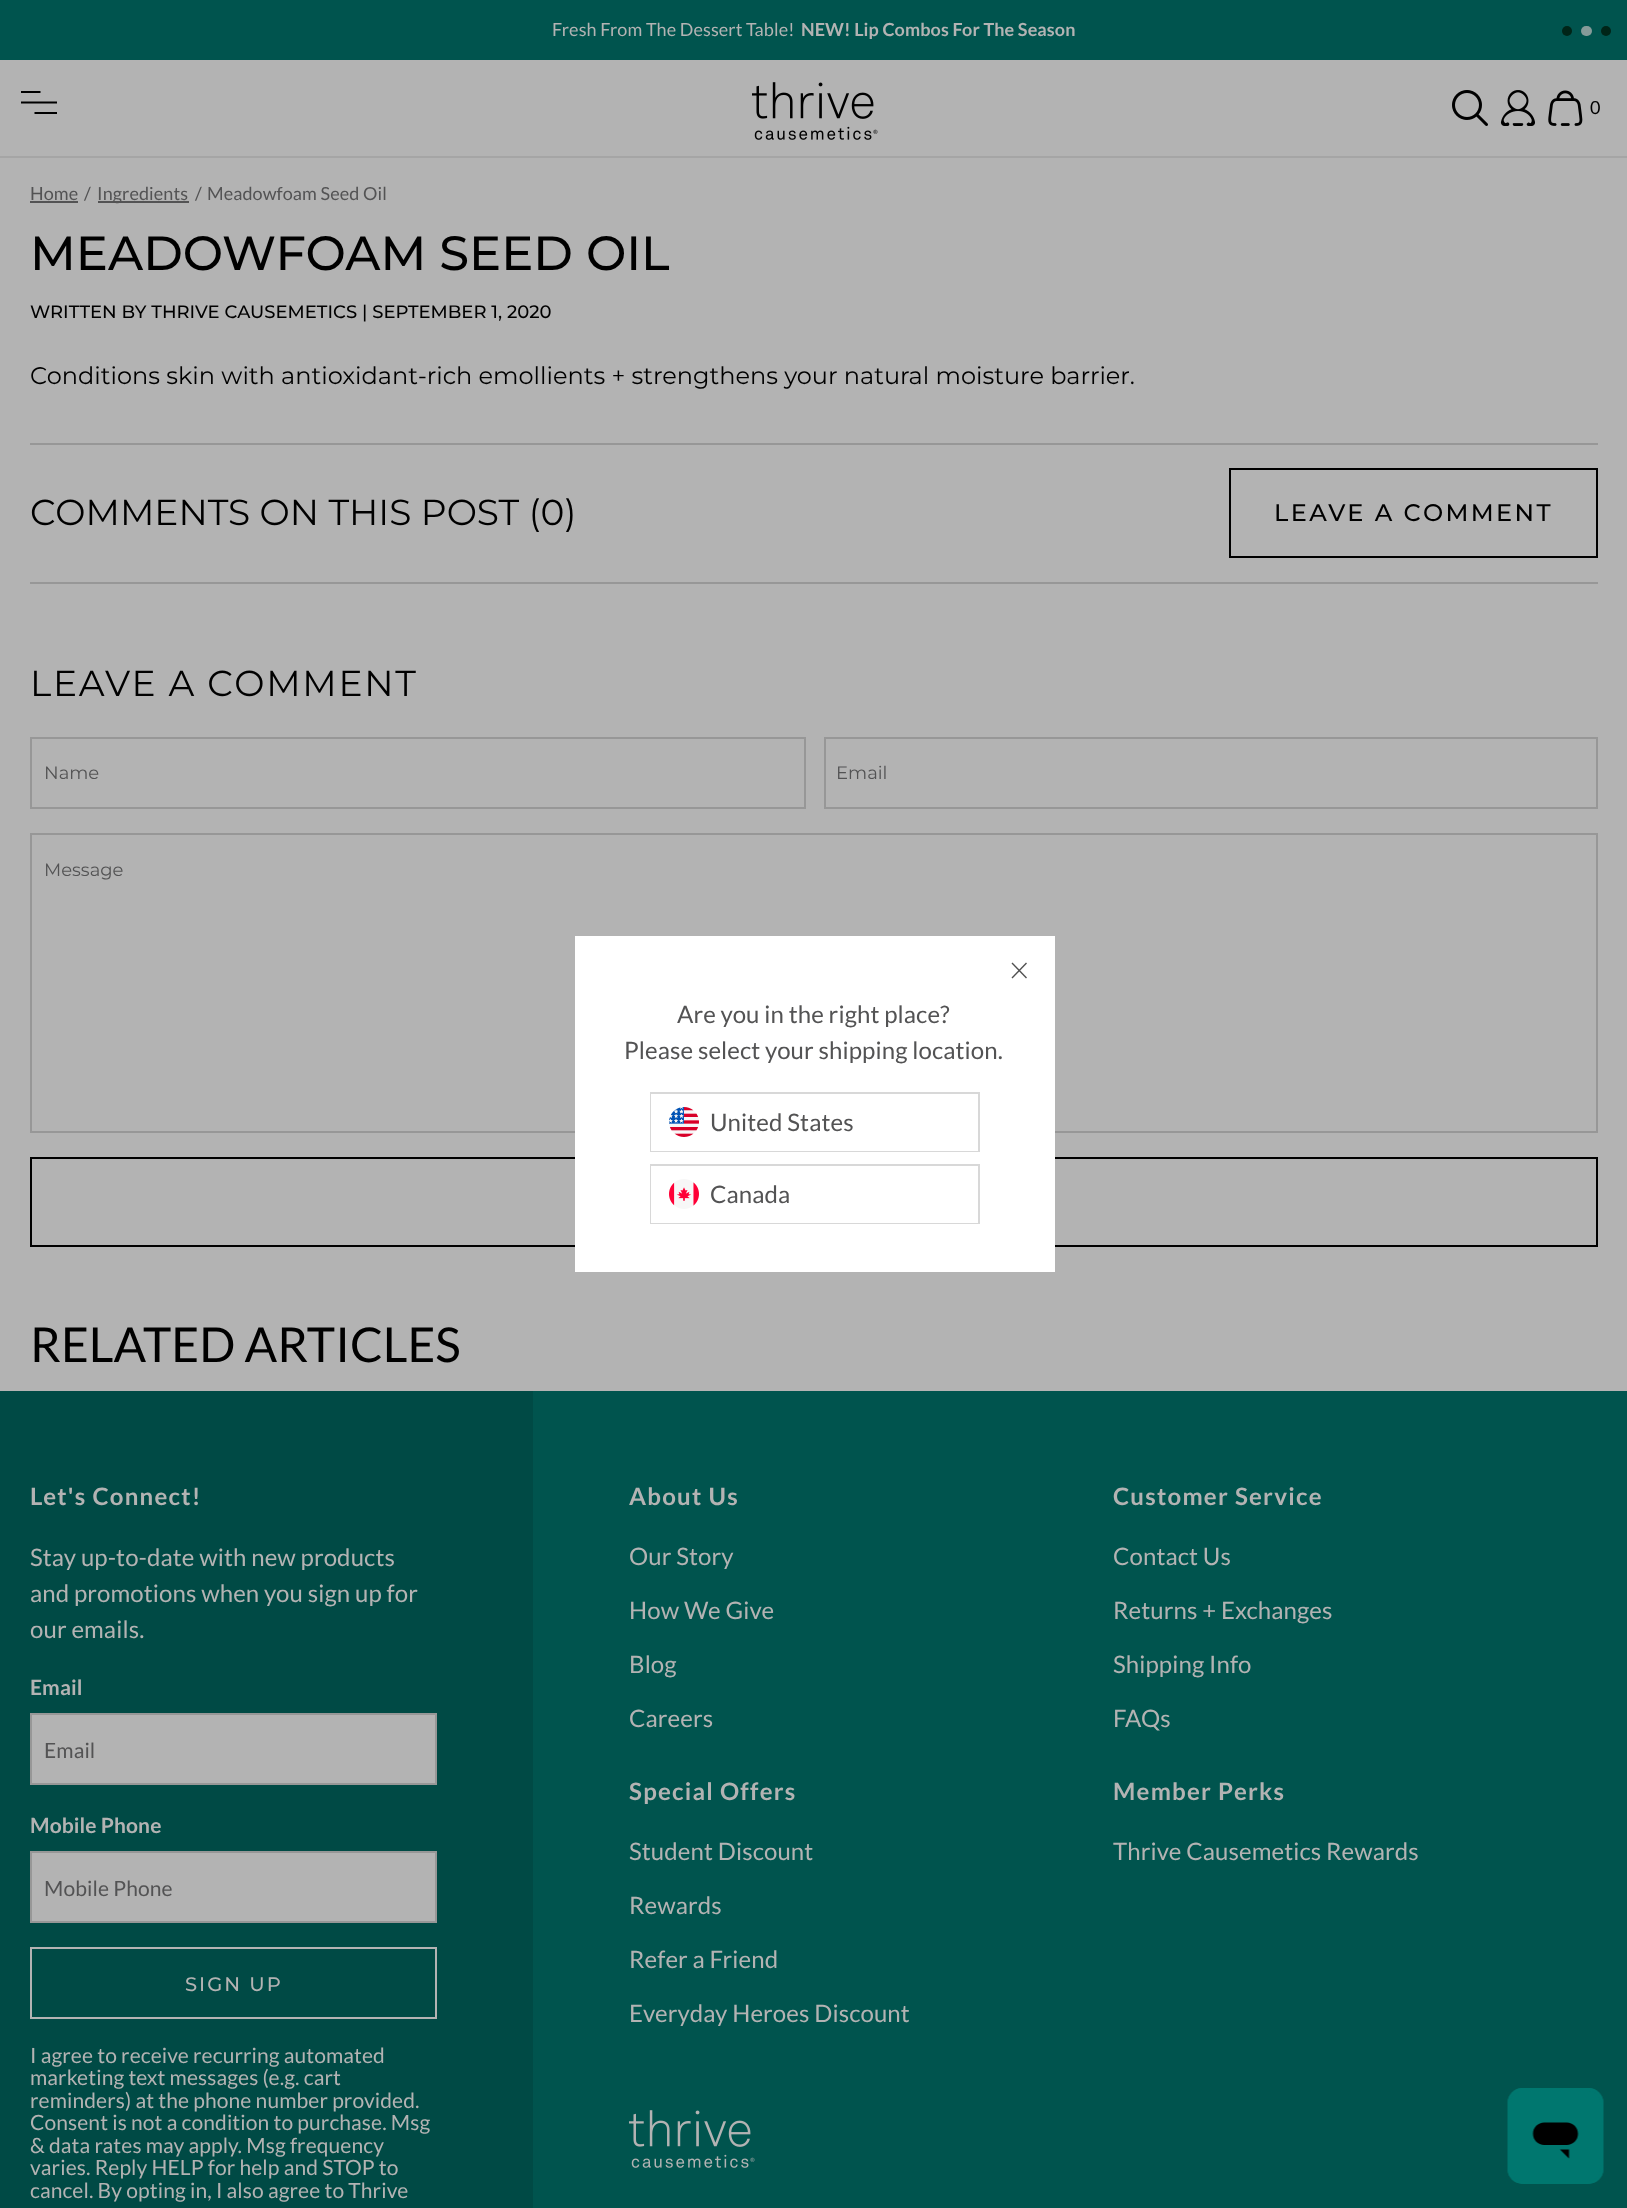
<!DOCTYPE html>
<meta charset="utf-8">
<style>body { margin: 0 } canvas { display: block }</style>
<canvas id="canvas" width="1627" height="2208"></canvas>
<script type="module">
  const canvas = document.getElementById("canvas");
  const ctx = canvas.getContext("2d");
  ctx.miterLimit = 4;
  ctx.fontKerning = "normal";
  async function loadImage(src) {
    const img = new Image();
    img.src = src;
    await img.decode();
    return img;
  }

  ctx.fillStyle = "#b3b3b3";
  ctx.fillRect(0, 0, 1627, 2208);
  ctx.fillStyle = "#00544e";
  ctx.fillRect(0, 0, 1627, 60);
  ctx.letterSpacing = "0.1px";
  ctx.font = "18px Lato";
  ctx.fillStyle = "#b3b3b3";
  ctx.fillText("Fresh From The Dessert Table!", 552, 36);
  ctx.font = "bold 18px Lato";
  ctx.fillText("NEW! Lip Combos For The Season", 801, 36);
  ctx.fillStyle = "#002518";
  ctx.beginPath();
  ctx.arc(1567, 31, 5, 0, Math.PI * 2);
  ctx.fill();
  ctx.fillStyle = "#869b99";
  ctx.beginPath();
  ctx.roundRect(1581, 26, 11, 10, 5);
  ctx.fill();
  ctx.fillStyle = "#002518";
  ctx.beginPath();
  ctx.arc(1606, 31, 5, 0, Math.PI * 2);
  ctx.fill();
  ctx.fillStyle = "#a5a5a5";
  ctx.fillRect(0, 156, 1627, 2);
  ctx.save();
  ctx.beginPath();
  ctx.rect(21, 90, 36, 24);
  ctx.clip();
  ctx.beginPath();
  ctx.moveTo(21, 92);
  ctx.lineTo(40.5, 92);
  ctx.moveTo(21, 102.5);
  ctx.lineTo(57, 102.5);
  ctx.moveTo(34.5, 113);
  ctx.lineTo(57, 113);
  ctx.strokeStyle = "#000000";
  ctx.lineWidth = 2.2;
  ctx.stroke();
  ctx.restore();
  ctx.drawImage(await loadImage("img1.png"), 752, 82, 126, 58);
  ctx.drawImage(await loadImage("img2.png"), 1452, 90, 36, 36);
  ctx.drawImage(await loadImage("img3.png"), 1500, 90, 35, 36);
  ctx.drawImage(await loadImage("img4.png"), 1548, 90, 35, 36);
  ctx.letterSpacing = "0px";
  ctx.font = "18px Lato";
  ctx.fillStyle = "#000000";
  ctx.fillText("0", 1590, 114);
  ctx.letterSpacing = "0.1px";
  ctx.fillStyle = "#535354";
  ctx.fillText("Home", 30, 200);
  ctx.fillRect(30, 201, 48, 2);
  ctx.fillText("/", 84, 200);
  ctx.fillRect(98, 201, 91, 2);
  ctx.fillText("Ingredients", 97, 200);
  ctx.fillText("/", 195, 200);
  ctx.fillText("Meadowfoam Seed Oil", 207, 200);
  ctx.letterSpacing = "0px";
  ctx.font = "500 48px Montserrat";
  ctx.fillStyle = "#000000";
  ctx.fillText("MEADOWFOAM SEED OIL", 30, 270);
  ctx.font = "500 18px Montserrat";
  ctx.fillText("WRITTEN BY THRIVE CAUSEMETICS | SEPTEMBER 1, 2020", 30, 318);
  ctx.font = "24px Montserrat";
  ctx.fillText("Conditions skin with antioxidant-rich emollients + strengthens your natural moisture barrier.", 30, 384);
  ctx.fillStyle = "#979797";
  ctx.fillRect(30, 443, 1568, 2);
  ctx.font = "36px Montserrat";
  ctx.fillStyle = "#000000";
  ctx.fillText("COMMENTS ON THIS POST (0)", 30, 525);
  ctx.strokeStyle = "#000000";
  ctx.lineWidth = 2;
  ctx.strokeRect(1230, 469, 367, 88);
  ctx.letterSpacing = "2.4px";
  ctx.font = "500 24px Montserrat";
  ctx.fillText("LEAVE A COMMENT", 1274, 521);
  ctx.fillStyle = "#979797";
  ctx.fillRect(30, 582, 1568, 2);
  ctx.letterSpacing = "1.75px";
  ctx.font = "36px Montserrat";
  ctx.fillStyle = "#000000";
  ctx.fillText("LEAVE A COMMENT", 30, 696);
  ctx.strokeStyle = "#979797";
  ctx.strokeRect(31, 738, 774, 70);
  ctx.letterSpacing = "0px";
  ctx.font = "18px Montserrat";
  ctx.fillStyle = "#535354";
  ctx.fillText("Name", 44, 779);
  ctx.strokeRect(825, 738, 772, 70);
  ctx.fillText("Email", 836, 779);
  ctx.strokeRect(31, 834, 1566, 298);
  ctx.fillText("Message", 44, 876);
  ctx.strokeStyle = "#000000";
  ctx.strokeRect(31, 1158, 1566, 88);
  ctx.font = "48px Lato";
  ctx.fillStyle = "#000000";
  ctx.fillText("RELATED ARTICLES", 30, 1362);
  ctx.fillStyle = "#ffffff";
  ctx.fillRect(575, 936, 480, 336);
  ctx.fillStyle = "#515151";
  ctx.beginPath();
  ctx.moveTo(1026, 962.5);
  ctx.lineTo(1027, 963.5);
  ctx.lineTo(1012.5, 978.5);
  ctx.lineTo(1011.5, 977.5);
  ctx.closePath();
  ctx.fill();
  ctx.beginPath();
  ctx.moveTo(1012.5, 962.5);
  ctx.lineTo(1027, 977.5);
  ctx.lineTo(1026, 978.5);
  ctx.lineTo(1011.5, 963.5);
  ctx.closePath();
  ctx.fill();
  ctx.letterSpacing = "0.1px";
  ctx.font = "24px Lato";
  ctx.fillStyle = "#535354";
  ctx.fillText("Are you in the right place?", 677, 1023);
  ctx.fillText("Please select your shipping location.", 624, 1059);
  ctx.strokeStyle = "#d8d8d8";
  ctx.strokeRect(651, 1093, 328, 58);
  ctx.fillStyle = "#ffffff";
  ctx.fillRect(651, 1094, 327, 57);
  ctx.drawImage(await loadImage("img5.png"), 669, 1107, 30, 30);
  ctx.fillStyle = "#535354";
  ctx.fillText("United States", 710, 1131);
  ctx.strokeRect(651, 1165, 328, 58);
  ctx.fillStyle = "#ffffff";
  ctx.fillRect(651, 1166, 327, 57);
  ctx.drawImage(await loadImage("img6.png"), 669, 1179, 30, 30);
  ctx.fillStyle = "#535354";
  ctx.fillText("Canada", 710, 1203);
  ctx.fillStyle = "#004a45";
  ctx.fillRect(0, 1391, 533, 817);
  ctx.fillStyle = "#00544e";
  ctx.fillRect(533, 1391, 1094, 817);
  ctx.letterSpacing = "1.25px";
  ctx.font = "bold 24px Lato";
  ctx.fillStyle = "#b3b3b3";
  ctx.fillText("Let's Connect!", 30, 1505);
  ctx.letterSpacing = "0.1px";
  ctx.font = "24px Lato";
  ctx.fillText("Stay up-to-date with new products", 30, 1566);
  ctx.fillText("and promotions when you sign up for", 30, 1602);
  ctx.fillText("our emails.", 30, 1638);
  ctx.font = "bold 21px Lato";
  ctx.fillText("Email", 30, 1695);
  ctx.beginPath();
  ctx.rect(31, 1714, 405, 70);
  ctx.fill();
  ctx.strokeStyle = "#979797";
  ctx.stroke();
  ctx.font = "21px Lato";
  ctx.fillStyle = "#535354";
  ctx.fillText("Email", 44, 1758);
  ctx.font = "bold 21px Lato";
  ctx.fillStyle = "#b3b3b3";
  ctx.fillText("Mobile Phone", 30, 1833);
  ctx.beginPath();
  ctx.rect(31, 1852, 405, 70);
  ctx.fill();
  ctx.stroke();
  ctx.font = "21px Lato";
  ctx.fillStyle = "#535354";
  ctx.fillText("Mobile Phone", 44, 1896);
  ctx.strokeStyle = "#b3b3b3";
  ctx.strokeRect(31, 1948, 405, 70);
  ctx.letterSpacing = "2px";
  ctx.font = "500 19.5px Montserrat";
  ctx.fillStyle = "#b3b3b3";
  ctx.fillText("SIGN UP", 185, 1991);
  ctx.letterSpacing = "0.1px";
  ctx.font = "21px Lato";
  ctx.fillText("I agree to receive recurring automated", 30, 2063);
  ctx.fillText("marketing text messages (e.g. cart", 30, 2085);
  ctx.fillText("reminders) at the phone number provided.", 30, 2108);
  ctx.fillText("Consent is not a condition to purchase. Msg", 30, 2130);
  ctx.fillText("& data rates may apply. Msg frequency", 30, 2153);
  ctx.fillText("varies. Reply HELP for help and STOP to", 30, 2175);
  ctx.fillText("cancel. By opting in, I also agree to Thrive", 30, 2198);
  ctx.letterSpacing = "1.25px";
  ctx.font = "bold 24px Lato";
  ctx.fillText("About Us", 629, 1505);
  ctx.letterSpacing = "0.1px";
  ctx.font = "24px Lato";
  ctx.fillText("Our Story", 629, 1565);
  ctx.fillText("How We Give", 629, 1619);
  ctx.fillText("Blog", 629, 1673);
  ctx.fillText("Careers", 629, 1727);
  ctx.letterSpacing = "1.25px";
  ctx.font = "bold 24px Lato";
  ctx.fillText("Customer Service", 1113, 1505);
  ctx.letterSpacing = "0.1px";
  ctx.font = "24px Lato";
  ctx.fillText("Contact Us", 1113, 1565);
  ctx.fillText("Returns + Exchanges", 1113, 1619);
  ctx.fillText("Shipping Info", 1113, 1673);
  ctx.fillText("FAQs", 1113, 1727);
  ctx.letterSpacing = "1.25px";
  ctx.font = "bold 24px Lato";
  ctx.fillText("Special Offers", 629, 1800);
  ctx.letterSpacing = "0.1px";
  ctx.font = "24px Lato";
  ctx.fillText("Student Discount", 629, 1860);
  ctx.fillText("Rewards", 629, 1914);
  ctx.fillText("Refer a Friend", 629, 1968);
  ctx.fillText("Everyday Heroes Discount", 629, 2022);
  ctx.letterSpacing = "1.25px";
  ctx.font = "bold 24px Lato";
  ctx.fillText("Member Perks", 1113, 1800);
  ctx.letterSpacing = "0.1px";
  ctx.font = "24px Lato";
  ctx.fillText("Thrive Causemetics Rewards", 1113, 1860);
  ctx.drawImage(await loadImage("img7.png"), 629, 2110, 126, 58);
  ctx.drawImage(await loadImage("img8.png"), 1507, 2088, 97, 96);
</script>
